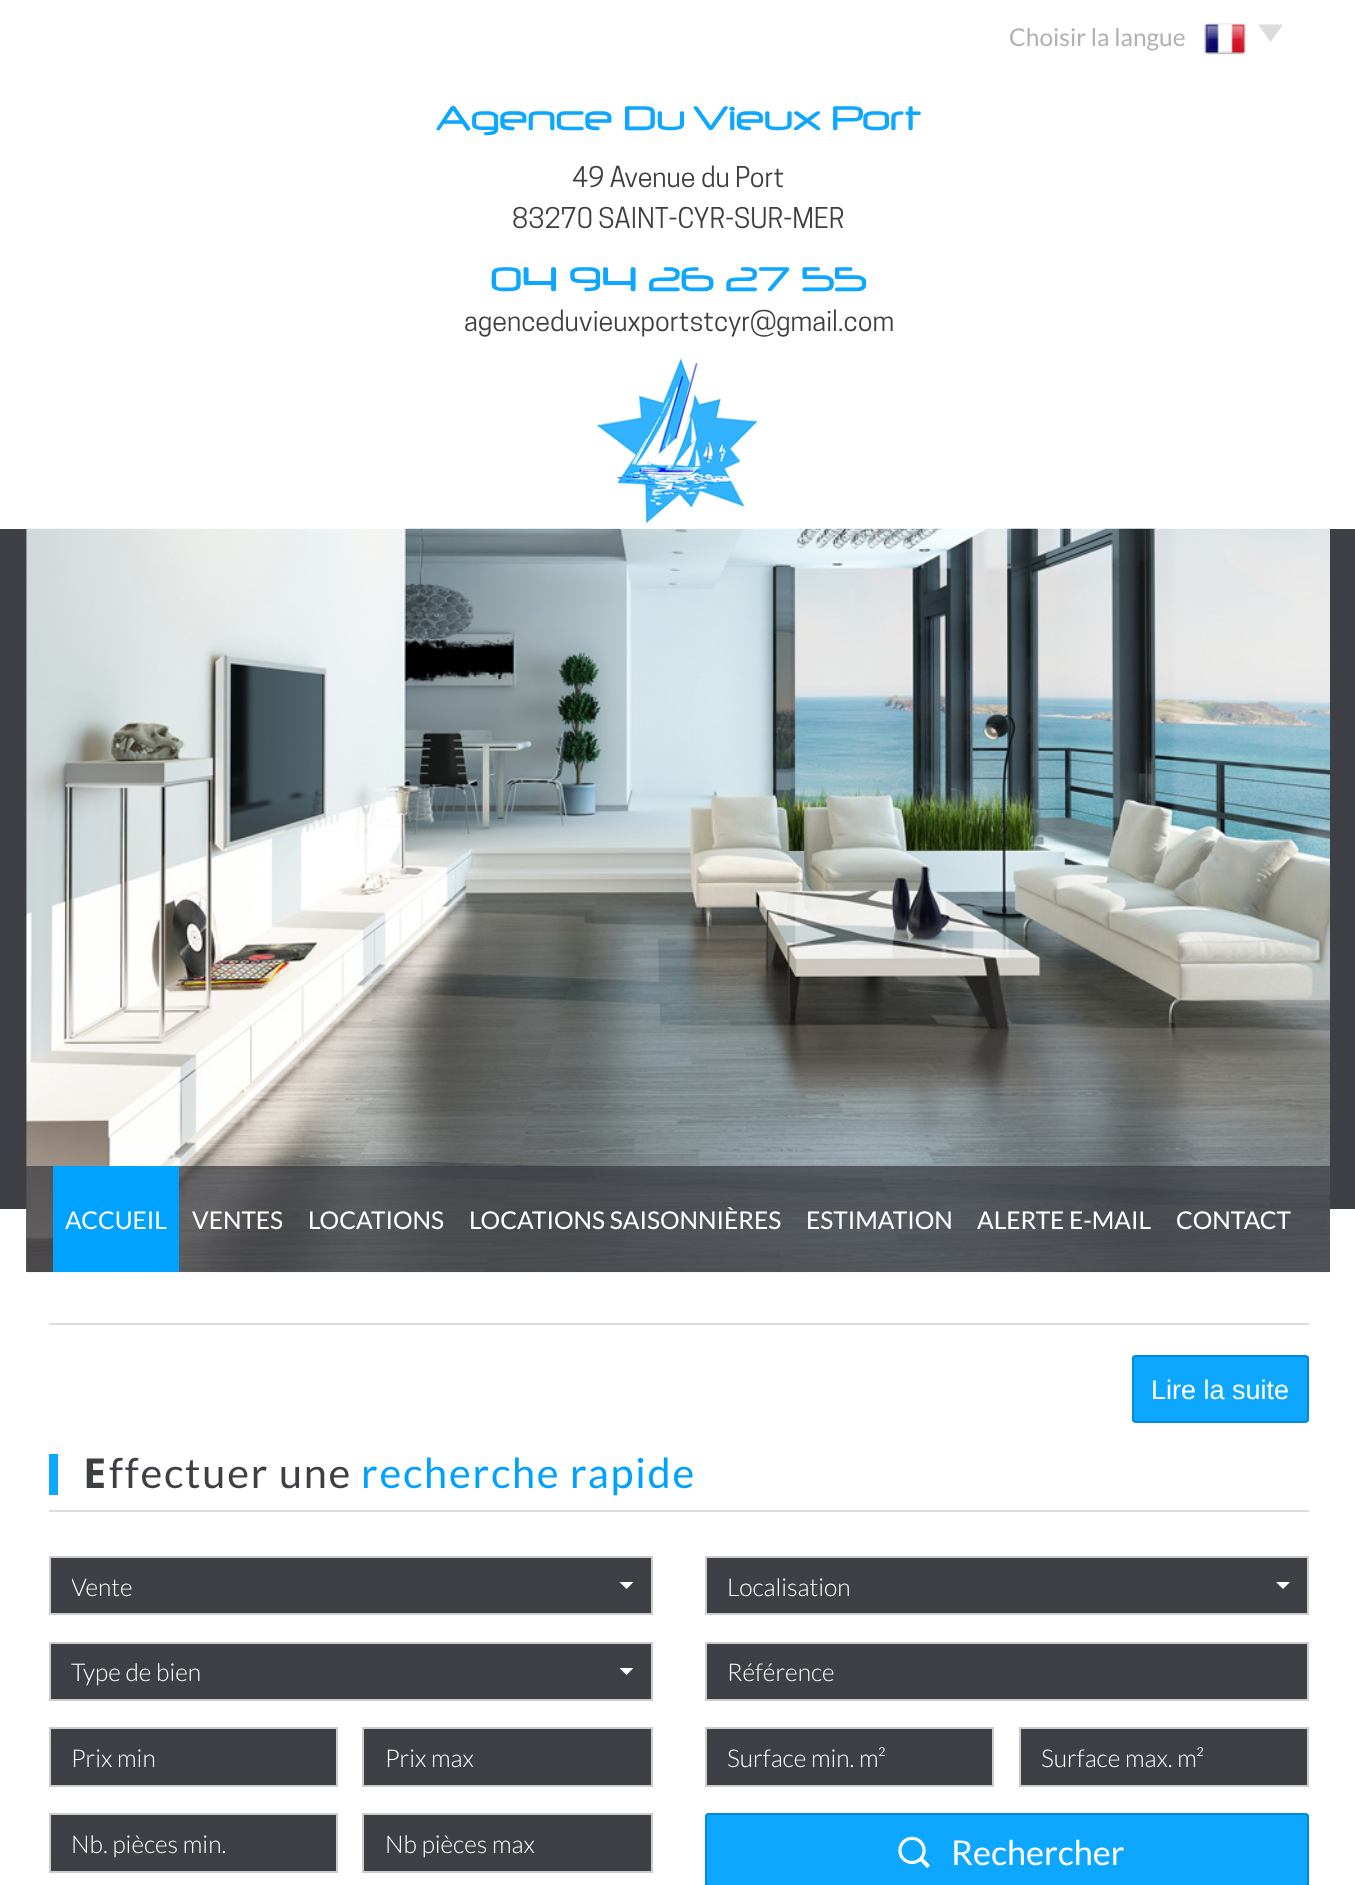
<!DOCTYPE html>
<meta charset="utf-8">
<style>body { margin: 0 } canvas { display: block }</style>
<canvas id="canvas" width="1355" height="1885"></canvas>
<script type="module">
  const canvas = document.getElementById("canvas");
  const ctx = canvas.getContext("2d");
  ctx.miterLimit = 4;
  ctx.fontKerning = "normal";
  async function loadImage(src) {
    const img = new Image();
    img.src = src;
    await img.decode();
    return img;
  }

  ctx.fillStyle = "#ffffff";
  ctx.fillRect(0, 0, 1355, 1885);
  ctx.fillStyle = "#3f4045";
  ctx.fillRect(0, 529, 1355, 680);
  ctx.font = "24.5px Lato";
  ctx.fillStyle = "#b1b1b1";
  ctx.fillText("Choisir la langue", 1009, 46);
  ctx.drawImage(await loadImage("img1.png"), 1204, 23, 42, 32);
  ctx.fillStyle = "#dcdcdc";
  ctx.beginPath();
  ctx.moveTo(1258, 24.5);
  ctx.lineTo(1283, 24.5);
  ctx.lineTo(1270.5, 42);
  ctx.closePath();
  ctx.fill();
  ctx.font = "40.25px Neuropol";
  ctx.fillStyle = "#0da7ff";
  ctx.fillText("Agence Du Vieux Port", 436, 130);
  ctx.font = "27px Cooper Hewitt";
  ctx.fillStyle = "#3e3f44";
  ctx.fillText("49 Avenue du Port", 572, 187);
  ctx.fillText("83270 SAINT-CYR-SUR-MER", 512, 228);
  ctx.font = "40.25px Neuropol";
  ctx.fillStyle = "#0da7ff";
  ctx.fillText("04 94 26 27 55", 490, 291);
  ctx.font = "27px Cooper Hewitt";
  ctx.fillStyle = "#3e3f44";
  ctx.fillText("agenceduvieuxportstcyr@gmail.com", 464, 331);
  ctx.drawImage(await loadImage("img3.png"), 26, 528, 1304, 745);
  ctx.drawImage(await loadImage("img2.png"), 591, 358, 173, 171);
  ctx.fillStyle = "rgba(62, 63, 68, 0.75)";
  ctx.fillRect(26, 1166, 1304, 106);
  ctx.fillStyle = "#00a2ff";
  ctx.fillRect(53, 1166, 126, 106);
  ctx.font = "24.5px Lato";
  ctx.fillStyle = "#ffffff";
  ctx.fillText("ACCUEIL", 65, 1229);
  ctx.fillText("VENTES", 192, 1229);
  ctx.fillText("LOCATIONS", 308, 1229);
  ctx.fillText("LOCATIONS SAISONNIÈRES", 469, 1229);
  ctx.fillText("ESTIMATION", 806, 1229);
  ctx.fillText("ALERTE E-MAIL", 977, 1229);
  ctx.fillText("CONTACT", 1176, 1229);
  ctx.fillStyle = "#dddddd";
  ctx.fillRect(49, 1323, 1260, 2);
  ctx.save();
  ctx.beginPath();
  ctx.roundRect(1132, 1355, 177, 68, 4);
  ctx.clip();
  ctx.fillStyle = "#0da7ff";
  ctx.fillRect(1132, 1356, 177, 65);
  ctx.restore();
  ctx.beginPath();
  ctx.roundRect(1133, 1356, 175, 66, 3);
  ctx.strokeStyle = "#008ad9";
  ctx.lineWidth = 2;
  ctx.stroke();
  ctx.font = "27px Liberation Sans";
  ctx.fillStyle = "#ffffff";
  ctx.fillText("Lire la suite", 1151, 1399);
  ctx.fillStyle = "#0da7ff";
  ctx.fillRect(49, 1454, 9, 41);
  ctx.letterSpacing = "1.75px";
  ctx.font = "bold 41.5px Noto Sans";
  ctx.fillStyle = "#3e3f44";
  ctx.fillText("E", 83, 1488);
  ctx.font = "41.5px Lato";
  ctx.fillText("ffectuer une", 109, 1488);
  ctx.fillStyle = "#00a2ff";
  ctx.fillText("recherche rapide", 361, 1488);
  ctx.fillStyle = "#dddddd";
  ctx.fillRect(49, 1510, 1260, 2);
  ctx.fillStyle = "#3f4045";
  ctx.beginPath();
  ctx.rect(50, 1557, 602, 57);
  ctx.fill();
  ctx.strokeStyle = "#cdcdcd";
  ctx.stroke();
  ctx.save();
  ctx.beginPath();
  ctx.rect(72, 1568, 558, 37);
  ctx.clip();
  ctx.letterSpacing = "0px";
  ctx.font = "300 24.5px Lato";
  ctx.fillStyle = "#ffffff";
  ctx.fillText("Vente", 71, 1596);
  ctx.restore();
  ctx.fillStyle = "#ffffff";
  ctx.beginPath();
  ctx.moveTo(619.5, 1582);
  ctx.lineTo(633.5, 1582);
  ctx.lineTo(626.5, 1589);
  ctx.closePath();
  ctx.fill();
  ctx.fillStyle = "#3f4045";
  ctx.beginPath();
  ctx.rect(50, 1643, 602, 57);
  ctx.fill();
  ctx.stroke();
  ctx.letterSpacing = "0px";
  ctx.font = "300 24.5px Lato";
  ctx.fillStyle = "#ffffff";
  ctx.fillText("Type de bien", 71, 1681);
  ctx.beginPath();
  ctx.moveTo(619.5, 1668);
  ctx.lineTo(633.5, 1668);
  ctx.lineTo(626.5, 1675);
  ctx.closePath();
  ctx.fill();
  ctx.fillStyle = "#3f4045";
  ctx.beginPath();
  ctx.rect(706, 1557, 602, 57);
  ctx.fill();
  ctx.stroke();
  ctx.fillStyle = "#ffffff";
  ctx.fillText("Localisation", 727, 1596);
  ctx.beginPath();
  ctx.moveTo(1276, 1582);
  ctx.lineTo(1290, 1582);
  ctx.lineTo(1283, 1589);
  ctx.closePath();
  ctx.fill();
  ctx.fillStyle = "#3f4045";
  ctx.beginPath();
  ctx.rect(706, 1643, 602, 57);
  ctx.fill();
  ctx.stroke();
  ctx.fillStyle = "#ffffff";
  ctx.fillText("Référence", 727, 1681);
  ctx.fillStyle = "#3f4045";
  ctx.beginPath();
  ctx.rect(50, 1728, 287, 58);
  ctx.fill();
  ctx.stroke();
  ctx.fillStyle = "#ffffff";
  ctx.fillText("Prix min", 71, 1767);
  ctx.fillStyle = "#3f4045";
  ctx.beginPath();
  ctx.rect(363, 1728, 289, 58);
  ctx.fill();
  ctx.stroke();
  ctx.fillStyle = "#ffffff";
  ctx.fillText("Prix max", 385, 1767);
  ctx.fillStyle = "#3f4045";
  ctx.beginPath();
  ctx.rect(706, 1728, 287, 58);
  ctx.fill();
  ctx.stroke();
  ctx.fillStyle = "#ffffff";
  ctx.fillText("Surface min. m²", 727, 1767);
  ctx.fillStyle = "#3f4045";
  ctx.beginPath();
  ctx.rect(1020, 1728, 288, 58);
  ctx.fill();
  ctx.stroke();
  ctx.fillStyle = "#ffffff";
  ctx.fillText("Surface max. m²", 1041, 1767);
  ctx.fillStyle = "#3f4045";
  ctx.beginPath();
  ctx.rect(50, 1814, 287, 58);
  ctx.fill();
  ctx.stroke();
  ctx.fillStyle = "#ffffff";
  ctx.fillText("Nb. pièces min.", 71, 1853);
  ctx.fillStyle = "#3f4045";
  ctx.beginPath();
  ctx.rect(363, 1814, 289, 58);
  ctx.fill();
  ctx.stroke();
  ctx.fillStyle = "#ffffff";
  ctx.fillText("Nb pièces max", 385, 1853);
  ctx.save();
  ctx.beginPath();
  ctx.roundRect(705, 1813, 604, 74, 4);
  ctx.clip();
  ctx.fillStyle = "#0da7ff";
  ctx.fillRect(705, 1815, 604, 70);
  ctx.restore();
  ctx.beginPath();
  ctx.roundRect(706, 1814, 602, 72, 3);
  ctx.strokeStyle = "#008ad9";
  ctx.stroke();
  ctx.drawImage(await loadImage("img4.png"), 898, 1836, 32, 32);
  ctx.font = "34.25px Lato";
  ctx.fillText("Rechercher", 951, 1865);
</script>
